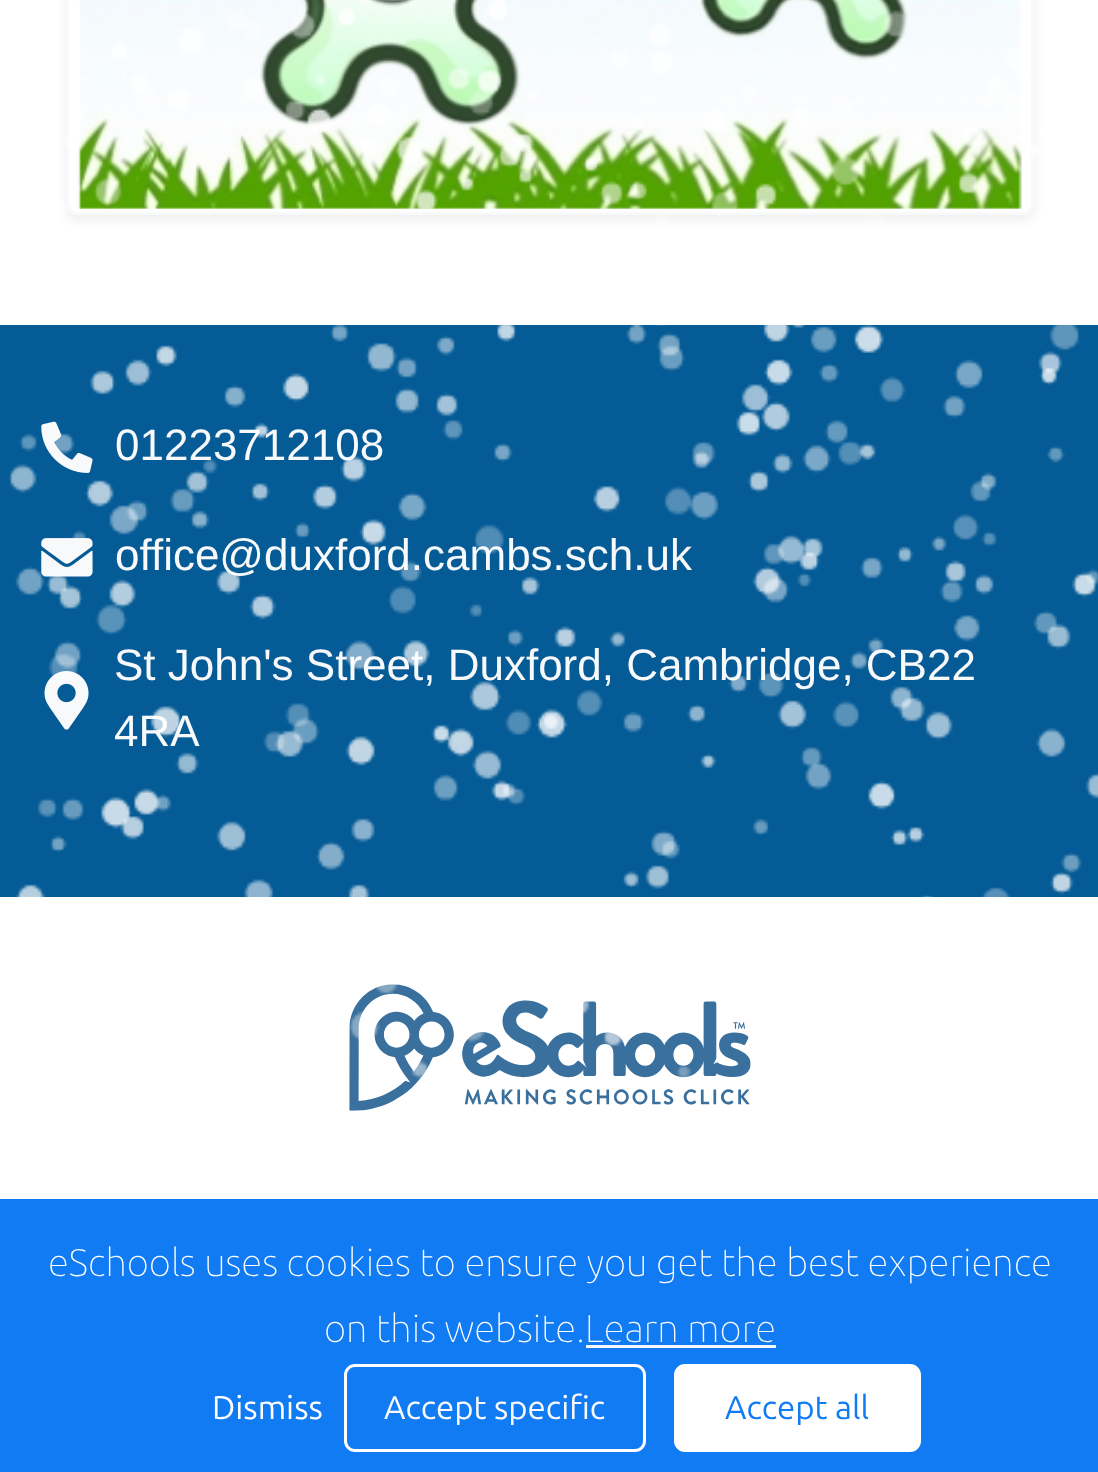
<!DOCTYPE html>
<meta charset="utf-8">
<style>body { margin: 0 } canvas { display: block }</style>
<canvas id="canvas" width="1098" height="1472"></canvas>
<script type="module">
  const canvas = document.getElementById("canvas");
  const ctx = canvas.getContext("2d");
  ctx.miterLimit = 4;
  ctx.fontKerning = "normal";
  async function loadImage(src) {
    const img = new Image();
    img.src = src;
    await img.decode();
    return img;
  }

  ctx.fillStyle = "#ffffff";
  ctx.fillRect(0, 0, 1098, 1472);
  ctx.save();
  ctx.beginPath();
  ctx.moveTo(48, 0);
  ctx.lineTo(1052, 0);
  ctx.lineTo(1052, 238);
  ctx.lineTo(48, 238);
  ctx.closePath();
  ctx.moveTo(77, -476);
  ctx.lineTo(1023, -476);
  ctx.bezierCurveTo(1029, -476, 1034, -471, 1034, -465);
  ctx.lineTo(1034, 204);
  ctx.bezierCurveTo(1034, 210, 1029, 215, 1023, 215);
  ctx.lineTo(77, 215);
  ctx.bezierCurveTo(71, 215, 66, 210, 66, 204);
  ctx.lineTo(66, -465);
  ctx.bezierCurveTo(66, -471, 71, -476, 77, -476);
  ctx.closePath();
  ctx.clip("evenodd");
  ctx.fillStyle = "rgba(0, 0, 0, 0.07)";
  ctx.filter = "blur(5.5px)";
  ctx.beginPath();
  ctx.roundRect(66, -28, 968, 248, 11);
  ctx.fill();
  ctx.filter = "none";
  ctx.restore();
  ctx.beginPath();
  ctx.roundRect(67.5, -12.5, 965, 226, 9.5);
  ctx.strokeStyle = "#f8f9fa";
  ctx.lineWidth = 3;
  ctx.stroke();
  ctx.drawImage(await loadImage("img1.png"), 77, 0, 945, 209);
  ctx.fillStyle = "#045b96";
  ctx.fillRect(0, 325, 1098, 572);
  ctx.drawImage(await loadImage("img3.png"), 41, 421, 52, 52);
  ctx.font = "44px Liberation Sans";
  ctx.fillStyle = "#f8f9fa";
  ctx.fillText("01223712108", 115, 460);
  ctx.drawImage(await loadImage("img4.png"), 41, 538, 52, 39);
  ctx.fillText("office@duxford.cambs.sch.uk", 115, 570);
  ctx.drawImage(await loadImage("img5.png"), 44, 671, 45, 59);
  ctx.fillText("St John's Street, Duxford, Cambridge, CB22", 114, 680);
  ctx.fillText("4RA", 114, 746);
  ctx.drawImage(await loadImage("img6.png"), 349, 984, 402, 127);
  ctx.drawImage(await loadImage("img2.png"), 8, 0, 1090, 1199);
  ctx.fillStyle = "#117bf3";
  ctx.fillRect(0, 1199, 1098, 273);
  ctx.font = "100 38.5px Ubuntu";
  ctx.fillStyle = "#ffffff";
  ctx.fillText("eSchools uses cookies to ensure you get the best experience", 48, 1276);
  ctx.fillText("on this website.", 324, 1342);
  ctx.fillStyle = "#f8f9fa";
  ctx.fillText("Learn more", 585, 1342);
  ctx.fillStyle = "#f7f7f7";
  ctx.fillRect(586, 1345, 190, 3);
  ctx.font = "33px Ubuntu";
  ctx.fillStyle = "#ffffff";
  ctx.fillText("Dismiss", 212, 1419);
  ctx.beginPath();
  ctx.roundRect(345.5, 1365.5, 299, 85, 9.5);
  ctx.strokeStyle = "#ffffff";
  ctx.stroke();
  ctx.fillStyle = "#f8f9fa";
  ctx.fillText("Accept specific", 384, 1419);
  ctx.fillStyle = "#ffffff";
  ctx.beginPath();
  ctx.roundRect(675.5, 1365.5, 244, 85, 9.5);
  ctx.fill();
  ctx.stroke();
  ctx.fillStyle = "#117bf3";
  ctx.fillText("Accept all", 725, 1419);
</script>
